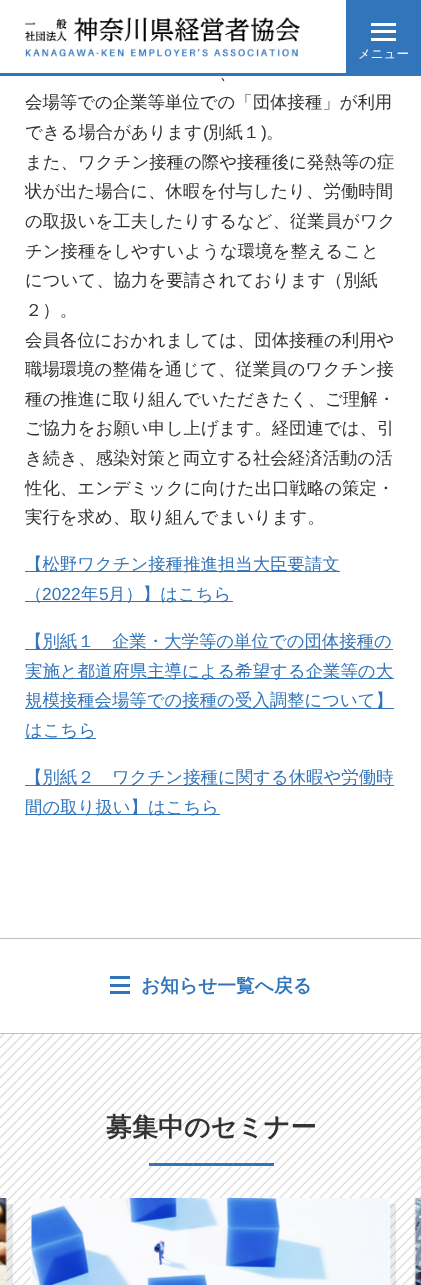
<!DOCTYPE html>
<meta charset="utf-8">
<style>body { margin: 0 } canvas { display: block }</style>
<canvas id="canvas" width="421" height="1285"></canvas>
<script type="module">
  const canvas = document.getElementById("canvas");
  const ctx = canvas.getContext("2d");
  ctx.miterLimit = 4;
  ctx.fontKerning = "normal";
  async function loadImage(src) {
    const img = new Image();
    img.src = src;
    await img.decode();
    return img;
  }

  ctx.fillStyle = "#ffffff";
  ctx.fillRect(0, 0, 421, 1285);
  ctx.fillStyle = "#3275ba";
  ctx.fillRect(0, 73, 421, 3);
  ctx.drawImage(await loadImage("img1.png"), 25, 17, 275, 40);
  ctx.fillRect(346, 0, 75, 73);
  ctx.fillStyle = "#ffffff";
  ctx.fillRect(371, 23, 25, 3);
  ctx.fillRect(371, 30, 25, 3);
  ctx.fillRect(371, 38, 25, 3);
  ctx.font = "500 12.5px WenQuanYi Zen Hei";
  ctx.fillText("メニュー", 358, 58);
  ctx.font = "500 17.4px WenQuanYi Zen Hei";
  ctx.fillStyle = "#333333";
  ctx.fillText("、", 219, 79);
  ctx.fillText("会場等での企業等単位での「団体接種」が利用", 25, 108);
  ctx.fillText("できる場合があります", 25, 138);
  ctx.font = "17.4px Liberation Sans";
  ctx.fillText("(", 203, 138);
  ctx.font = "500 17.4px WenQuanYi Zen Hei";
  ctx.fillText("別紙１", 208, 138);
  ctx.font = "17.4px Liberation Sans";
  ctx.fillText(")", 261, 138);
  ctx.font = "500 17.4px WenQuanYi Zen Hei";
  ctx.fillText("。", 266, 138);
  ctx.fillText("また、ワクチン接種の際や接種後に発熱等の症", 25, 168);
  ctx.fillText("状が出た場合に、休暇を付与したり、労働時間", 25, 197);
  ctx.fillText("の取扱いを工夫したりするなど、従業員がワク", 25, 227);
  ctx.fillText("チン接種をしやすいような環境を整えること", 25, 257);
  ctx.fillText("について、協力を要請されております（別紙", 25, 286);
  ctx.fillText("２）。", 25, 316);
  ctx.fillText("会員各位におかれましては、団体接種の利用や", 25, 346);
  ctx.fillText("職場環境の整備を通じて、従業員のワクチン接", 25, 375);
  ctx.fillText("種の推進に取り組んでいただきたく、ご理解・", 25, 405);
  ctx.fillText("ご協力をお願い申し上げます。経団連では、引", 25, 434);
  ctx.fillText("き続き、感染対策と両立する社会経済活動の活", 25, 464);
  ctx.fillText("性化、エンデミックに向けた出口戦略の策定・", 25, 494);
  ctx.fillText("実行を求め、取り組んでまいります。", 25, 523);
  ctx.fillStyle = "#3275ba";
  ctx.fillRect(25, 571, 315, 1);
  ctx.fillText("【松野ワクチン接種推進担当大臣要請文", 25, 570);
  ctx.fillRect(25, 601, 208, 1);
  ctx.fillText("（", 25, 600);
  ctx.font = "17.4px Liberation Sans";
  ctx.fillText("2022", 42, 600);
  ctx.font = "500 17.4px WenQuanYi Zen Hei";
  ctx.fillText("年", 81, 600);
  ctx.font = "17.4px Liberation Sans";
  ctx.fillText("5", 99, 600);
  ctx.font = "500 17.4px WenQuanYi Zen Hei";
  ctx.fillText("月）】はこちら", 108, 600);
  ctx.fillRect(25, 649, 368, 1);
  ctx.fillText("【別紙１　企業・大学等の単位での団体接種の", 25, 647);
  ctx.fillRect(25, 678, 369, 1);
  ctx.fillText("実施と都道府県主導による希望する企業等の大", 25, 677);
  ctx.fillRect(25, 708, 369, 1);
  ctx.fillText("規模接種会場等での接種の受入調整について】", 25, 706);
  ctx.fillRect(25, 738, 71, 1);
  ctx.fillText("はこちら", 25, 736);
  ctx.fillRect(25, 785, 369, 1);
  ctx.fillText("【別紙２　ワクチン接種に関する休暇や労働時", 25, 783);
  ctx.fillRect(25, 814, 195, 1);
  ctx.fillText("間の取り扱い】はこちら", 25, 813);
  ctx.fillStyle = "#bfbfbf";
  ctx.fillRect(0, 938, 421, 1);
  ctx.fillRect(0, 1033, 421, 1);
  ctx.fillStyle = "#3275ba";
  ctx.fillRect(110, 976, 20, 3);
  ctx.fillRect(110, 984, 20, 3);
  ctx.fillRect(110, 991, 20, 3);
  ctx.font = "bold 18.75px WenQuanYi Zen Hei";
  ctx.fillText("お知らせ一覧へ戻る", 141, 992);
  ctx.drawImage(await loadImage("img2.png"), 0, 1034, 421, 251);
  ctx.font = "bold 26px WenQuanYi Zen Hei";
  ctx.fillStyle = "#333333";
  ctx.fillText("募集中のセミナー", 106, 1136);
  ctx.fillStyle = "#3275ba";
  ctx.fillRect(149, 1163, 125, 3);
  ctx.fillStyle = "rgba(0, 0, 0, 0.08)";
  ctx.beginPath();
  ctx.moveTo(-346, 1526);
  ctx.lineTo(-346, 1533);
  ctx.lineTo(13, 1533);
  ctx.lineTo(13, 1204);
  ctx.lineTo(6, 1204);
  ctx.lineTo(6, 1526);
  ctx.closePath();
  ctx.fill();
  ctx.drawImage(await loadImage("img3.png"), 0, 1198, 7, 87);
  ctx.beginPath();
  ctx.moveTo(38, 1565);
  ctx.lineTo(38, 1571);
  ctx.lineTo(396, 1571);
  ctx.lineTo(396, 1204);
  ctx.lineTo(390, 1204);
  ctx.lineTo(390, 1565);
  ctx.closePath();
  ctx.fill();
  ctx.fillStyle = "#ffffff";
  ctx.fillRect(31, 1198, 359, 87);
  ctx.drawImage(await loadImage("img4.png"), 30, 1198, 361, 87);
  ctx.fillRect(415, 1198, 1, 87);
  ctx.drawImage(await loadImage("img5.png"), 414, 1198, 7, 87);
</script>
